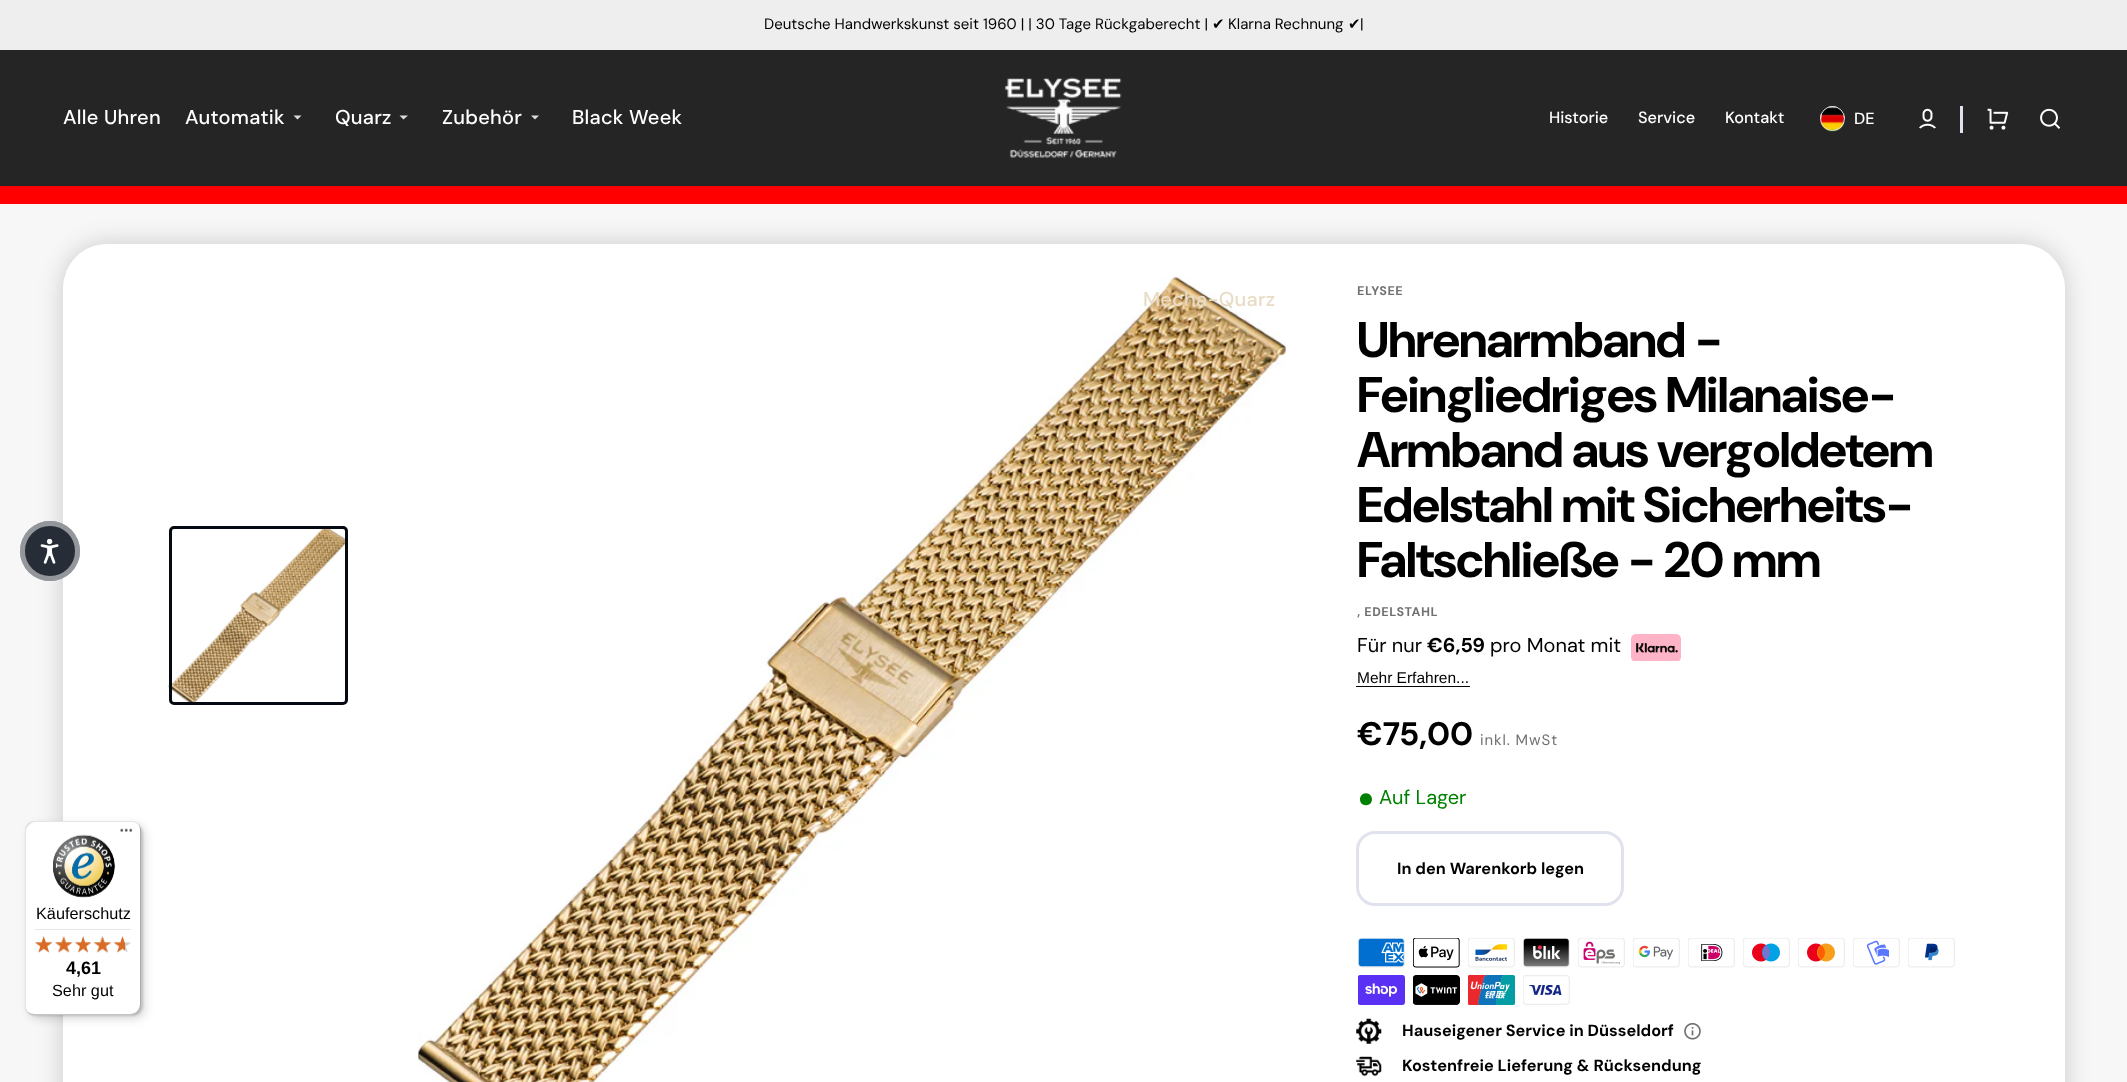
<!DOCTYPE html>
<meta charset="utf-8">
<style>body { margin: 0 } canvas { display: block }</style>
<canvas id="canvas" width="2127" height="1082"></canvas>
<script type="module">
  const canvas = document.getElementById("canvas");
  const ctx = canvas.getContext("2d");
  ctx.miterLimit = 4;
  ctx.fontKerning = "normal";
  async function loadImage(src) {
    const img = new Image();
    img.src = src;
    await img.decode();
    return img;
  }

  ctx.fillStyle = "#f7f7f7";
  ctx.fillRect(0, 0, 2127, 1082);
  ctx.fillStyle = "#eeeeee";
  ctx.fillRect(0, 0, 2127, 50);
  ctx.font = "15px DM Sans";
  ctx.fillStyle = "#000000";
  ctx.fillText("Deutsche Handwerkskunst seit 1960 | | 30 Tage Rückgaberecht |", 764, 29);
  ctx.font = "15px DejaVu Sans";
  ctx.fillText("✔", 1212, 29);
  ctx.font = "15px DM Sans";
  ctx.fillText("Klarna Rechnung", 1228, 29);
  ctx.font = "15px DejaVu Sans";
  ctx.fillText("✔", 1348, 29);
  ctx.font = "15px DM Sans";
  ctx.fillText("|", 1360, 29);
  ctx.fillStyle = "#252525";
  ctx.fillRect(0, 50, 2127, 136);
  ctx.drawImage(await loadImage("img1.png"), 1004, 77, 118, 81);
  ctx.letterSpacing = "0.25px";
  ctx.font = "500 20px 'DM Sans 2'";
  ctx.fillStyle = "#ffffff";
  ctx.fillText("Alle Uhren", 63, 124);
  ctx.fillText("Automatik", 185, 124);
  ctx.fillStyle = "#dcdcdc";
  ctx.beginPath();
  ctx.moveTo(297.5, 119.5);
  ctx.lineTo(293.5, 115.5);
  ctx.lineTo(301.5, 115.5);
  ctx.closePath();
  ctx.fill();
  ctx.fillStyle = "#ffffff";
  ctx.fillText("Quarz", 335, 124);
  ctx.fillStyle = "#dcdcdc";
  ctx.beginPath();
  ctx.moveTo(403.5, 119.5);
  ctx.lineTo(399.5, 115.5);
  ctx.lineTo(408, 115.5);
  ctx.closePath();
  ctx.fill();
  ctx.fillStyle = "rgba(0, 0, 0, 0.18)";
  ctx.filter = "blur(12.5px)";
  ctx.beginPath();
  ctx.roundRect(63, 244, 2002, 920, 44);
  ctx.fill();
  ctx.filter = "none";
  ctx.fillStyle = "#ffffff";
  ctx.beginPath();
  ctx.roundRect(63, 244, 2002, 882, 44);
  ctx.fill();
  ctx.drawImage(await loadImage("img8.png"), 418, 276, 868, 806);
  ctx.fillStyle = "#e9dcc6";
  ctx.fillText("Mecha-Quarz", 1143, 306);
  ctx.fillStyle = "#ffffff";
  ctx.fillText("Zubehör", 442, 124);
  ctx.fillStyle = "#dcdcdc";
  ctx.beginPath();
  ctx.moveTo(535, 119.5);
  ctx.lineTo(531, 115.5);
  ctx.lineTo(539, 115.5);
  ctx.closePath();
  ctx.fill();
  ctx.fillStyle = "#ffffff";
  ctx.fillText("Black Week", 572, 124);
  ctx.letterSpacing = "0px";
  ctx.font = "500 16.25px DM Sans";
  ctx.fillText("Historie", 1549, 123);
  ctx.fillText("Service", 1638, 123);
  ctx.fillText("Kontakt", 1725, 123);
  ctx.drawImage(await loadImage("img2.png"), 1820, 106, 25, 26);
  ctx.beginPath();
  ctx.arc(1832.5, 118.5, 12, 0, Math.PI * 2);
  ctx.strokeStyle = "#e0e3ee";
  ctx.stroke();
  ctx.fillText("DE", 1854, 124);
  ctx.drawImage(await loadImage("img3.png"), 1919, 108, 17, 21);
  ctx.fillStyle = "#e0e3ee";
  ctx.fillRect(1960, 106, 3, 27);
  ctx.drawImage(await loadImage("img4.png"), 1987, 108, 22, 22);
  ctx.drawImage(await loadImage("img5.png"), 2040, 108, 21, 21);
  ctx.fillStyle = "#ff0000";
  ctx.fillRect(0, 186, 2127, 18);
  ctx.fillStyle = "#272d36";
  ctx.beginPath();
  ctx.arc(50, 551, 30, 0, Math.PI * 2);
  ctx.fill();
  ctx.beginPath();
  ctx.arc(50, 551, 27.5, 0, Math.PI * 2);
  ctx.strokeStyle = "rgba(255, 255, 255, 0.5)";
  ctx.lineWidth = 5;
  ctx.stroke();
  ctx.drawImage(await loadImage("img6.png"), 40, 539, 19, 25);
  ctx.drawImage(await loadImage("img7.png"), 168, 526, 180, 179);
  ctx.beginPath();
  ctx.roundRect(170.5, 527.5, 176, 176, 3.5);
  ctx.strokeStyle = "#050912";
  ctx.lineWidth = 3;
  ctx.stroke();
  ctx.letterSpacing = "0.5px";
  ctx.font = "bold 12.5px 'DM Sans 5'";
  ctx.fillStyle = "#717171";
  ctx.fillText("ELYSEE", 1357, 295);
  ctx.letterSpacing = "-1px";
  ctx.font = "bold 50px DM Sans";
  ctx.fillStyle = "#000000";
  ctx.fillText("Uhrenarmband -", 1357, 357);
  ctx.fillText("Feingliedriges Milanaise-", 1357, 412);
  ctx.fillText("Armband aus vergoldetem", 1357, 467);
  ctx.fillText("Edelstahl mit Sicherheits-", 1357, 522);
  ctx.fillText("Faltschließe - 20 mm", 1357, 577);
  ctx.letterSpacing = "0.5px";
  ctx.font = "bold 12.5px 'DM Sans 5'";
  ctx.fillStyle = "#717171";
  ctx.fillText(", EDELSTAHL", 1357, 616);
  ctx.letterSpacing = "0px";
  ctx.font = "20px 'DM Sans 2'";
  ctx.fillStyle = "#000000";
  ctx.fillText("Für nur", 1357, 652);
  ctx.font = "bold 20px 'DM Sans 2'";
  ctx.fillText("€6,59", 1427, 652);
  ctx.font = "20px 'DM Sans 2'";
  ctx.fillText("pro Monat mit", 1490, 652);
  ctx.drawImage(await loadImage("img9.png"), 1631, 634, 50, 27);
  ctx.font = "15.5px Liberation Sans";
  ctx.fillText("Mehr Erfahren...", 1357, 683);
  ctx.fillStyle = "#040404";
  ctx.fillRect(1356, 686, 114, 1);
  ctx.font = "bold 32.5px 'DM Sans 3'";
  ctx.fillStyle = "#000000";
  ctx.fillText("€75,00", 1357, 745);
  ctx.letterSpacing = "0.9px";
  ctx.font = "15px DM Sans";
  ctx.fillStyle = "#717171";
  ctx.fillText("inkl. MwSt", 1480, 745);
  ctx.letterSpacing = "0px";
  ctx.font = "50px 'DM Sans 3'";
  ctx.fillStyle = "#008000";
  ctx.fillText("•", 1357, 816);
  ctx.font = "20px 'DM Sans 2'";
  ctx.fillText("Auf Lager", 1379, 804);
  ctx.beginPath();
  ctx.roundRect(1357.5, 832.5, 265, 72, 17.5);
  ctx.strokeStyle = "#e0e3ee";
  ctx.stroke();
  ctx.font = "bold 16.25px 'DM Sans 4'";
  ctx.fillStyle = "#000000";
  ctx.fillText("In den Warenkorb legen", 1397, 874);
  ctx.drawImage(await loadImage("img10.png"), 1358, 938, 47, 30);
  ctx.drawImage(await loadImage("img11.png"), 1413, 938, 47, 30);
  ctx.drawImage(await loadImage("img12.png"), 1468, 938, 47, 30);
  ctx.drawImage(await loadImage("img13.png"), 1523, 938, 47, 30);
  ctx.drawImage(await loadImage("img14.png"), 1578, 938, 47, 30);
  ctx.drawImage(await loadImage("img15.png"), 1633, 938, 47, 30);
  ctx.drawImage(await loadImage("img16.png"), 1688, 938, 47, 30);
  ctx.drawImage(await loadImage("img17.png"), 1743, 938, 47, 30);
  ctx.drawImage(await loadImage("img18.png"), 1798, 938, 47, 30);
  ctx.drawImage(await loadImage("img19.png"), 1853, 938, 47, 30);
  ctx.drawImage(await loadImage("img20.png"), 1908, 938, 47, 30);
  ctx.drawImage(await loadImage("img21.png"), 1358, 975, 47, 30);
  ctx.drawImage(await loadImage("img22.png"), 1413, 975, 47, 30);
  ctx.drawImage(await loadImage("img23.png"), 1468, 975, 47, 30);
  ctx.drawImage(await loadImage("img24.png"), 1523, 975, 47, 30);
  ctx.drawImage(await loadImage("img25.png"), 1356, 1018, 26, 26);
  ctx.fillText("Hauseigener Service in Düsseldorf", 1402, 1036);
  ctx.drawImage(await loadImage("img26.png"), 1684, 1023, 17, 17);
  ctx.drawImage(await loadImage("img27.png"), 1356, 1056, 26, 21);
  ctx.fillText("Kostenfreie Lieferung & Rücksendung", 1402, 1071);
  ctx.fillStyle = "rgba(0, 0, 0, 0.15)";
  ctx.filter = "blur(5px)";
  ctx.beginPath();
  ctx.roundRect(29, 825, 116, 194, 10);
  ctx.fill();
  ctx.filter = "none";
  ctx.filter = "blur(1px)";
  ctx.beginPath();
  ctx.roundRect(26, 823, 117, 193, 10);
  ctx.fill();
  ctx.filter = "none";
  ctx.fillStyle = "#ffffff";
  ctx.beginPath();
  ctx.roundRect(25, 821, 116, 194, 10);
  ctx.fill();
  ctx.fillStyle = "rgba(0, 0, 0, 0.1)";
  ctx.beginPath();
  ctx.moveTo(36, 822);
  ctx.lineTo(132, 822);
  ctx.bezierCurveTo(135, 822, 137, 823, 139, 824);
  ctx.bezierCurveTo(137, 822, 134, 821, 131, 821);
  ctx.lineTo(35, 821);
  ctx.bezierCurveTo(29, 821, 25, 825, 25, 831);
  ctx.lineTo(25, 1005);
  ctx.bezierCurveTo(25, 1008, 26, 1011, 28, 1013);
  ctx.bezierCurveTo(27, 1011, 26, 1009, 26, 1006);
  ctx.lineTo(26, 832);
  ctx.bezierCurveTo(26, 827, 31, 822, 36, 822);
  ctx.closePath();
  ctx.fill();
  ctx.fillStyle = "rgba(0, 0, 0, 0.2)";
  ctx.beginPath();
  ctx.moveTo(27, 1012);
  ctx.bezierCurveTo(29, 1014, 32, 1015, 35, 1015);
  ctx.lineTo(131, 1015);
  ctx.bezierCurveTo(137, 1015, 141, 1011, 141, 1005);
  ctx.lineTo(141, 831);
  ctx.bezierCurveTo(141, 829, 140, 826, 139, 825);
  ctx.bezierCurveTo(140, 826, 140, 828, 140, 830);
  ctx.lineTo(140, 1004);
  ctx.bezierCurveTo(140, 1009, 136, 1014, 130, 1014);
  ctx.lineTo(34, 1014);
  ctx.bezierCurveTo(31, 1014, 29, 1013, 27, 1012);
  ctx.closePath();
  ctx.fill();
  ctx.fillStyle = "rgba(50, 50, 50, 0.2)";
  ctx.beginPath();
  ctx.moveTo(27, 1011);
  ctx.bezierCurveTo(29, 1014, 32, 1015, 35, 1015);
  ctx.lineTo(131, 1015);
  ctx.bezierCurveTo(137, 1015, 141, 1011, 141, 1005);
  ctx.lineTo(141, 831);
  ctx.bezierCurveTo(141, 828, 140, 825, 137, 823);
  ctx.bezierCurveTo(139, 825, 140, 828, 140, 830);
  ctx.lineTo(140, 1004);
  ctx.bezierCurveTo(140, 1010, 136, 1014, 130, 1014);
  ctx.lineTo(34, 1014);
  ctx.bezierCurveTo(32, 1014, 29, 1013, 27, 1011);
  ctx.closePath();
  ctx.fill();
  ctx.drawImage(await loadImage("img28.png"), 120, 828, 13, 4);
  ctx.fillStyle = "rgba(255, 255, 255, 0.3)";
  ctx.beginPath();
  ctx.moveTo(27, 1011);
  ctx.bezierCurveTo(29, 1014, 32, 1015, 35, 1015);
  ctx.lineTo(131, 1015);
  ctx.bezierCurveTo(137, 1015, 141, 1011, 141, 1005);
  ctx.lineTo(141, 1004);
  ctx.bezierCurveTo(141, 1010, 136, 1014, 131, 1014);
  ctx.lineTo(34, 1014);
  ctx.bezierCurveTo(32, 1014, 29, 1013, 27, 1011);
  ctx.closePath();
  ctx.moveTo(139, 825);
  ctx.bezierCurveTo(137, 822, 134, 821, 131, 821);
  ctx.bezierCurveTo(134, 821, 137, 822, 139, 825);
  ctx.closePath();
  ctx.fill("evenodd");
  ctx.drawImage(await loadImage("img29.png"), 53, 834, 62, 64);
  ctx.font = "16.25px Liberation Sans";
  ctx.fillStyle = "#000000";
  ctx.fillText("Käuferschutz", 36, 919);
  ctx.fillStyle = "#e5e5e5";
  ctx.fillRect(35, 929, 96, 1);
  ctx.drawImage(await loadImage("img30.png"), 35, 936, 17, 16);
  ctx.drawImage(await loadImage("img31.png"), 55, 936, 17, 17);
  ctx.drawImage(await loadImage("img32.png"), 75, 936, 16, 17);
  ctx.drawImage(await loadImage("img33.png"), 93, 936, 18, 17);
  ctx.drawImage(await loadImage("img34.png"), 114, 936, 17, 17);
  ctx.drawImage(await loadImage("img35.png"), 35, 936, 17, 17);
  ctx.drawImage(await loadImage("img36.png"), 55, 936, 18, 17);
  ctx.drawImage(await loadImage("img37.png"), 75, 936, 16, 17);
  ctx.drawImage(await loadImage("img38.png"), 93, 936, 18, 17);
  ctx.drawImage(await loadImage("img39.png"), 114, 936, 11, 17);
  ctx.font = "bold 18px Liberation Sans";
  ctx.fillStyle = "#000000";
  ctx.fillText("4,61", 66, 974);
  ctx.font = "16.25px Liberation Sans";
  ctx.fillText("Sehr gut", 52, 996);
</script>
